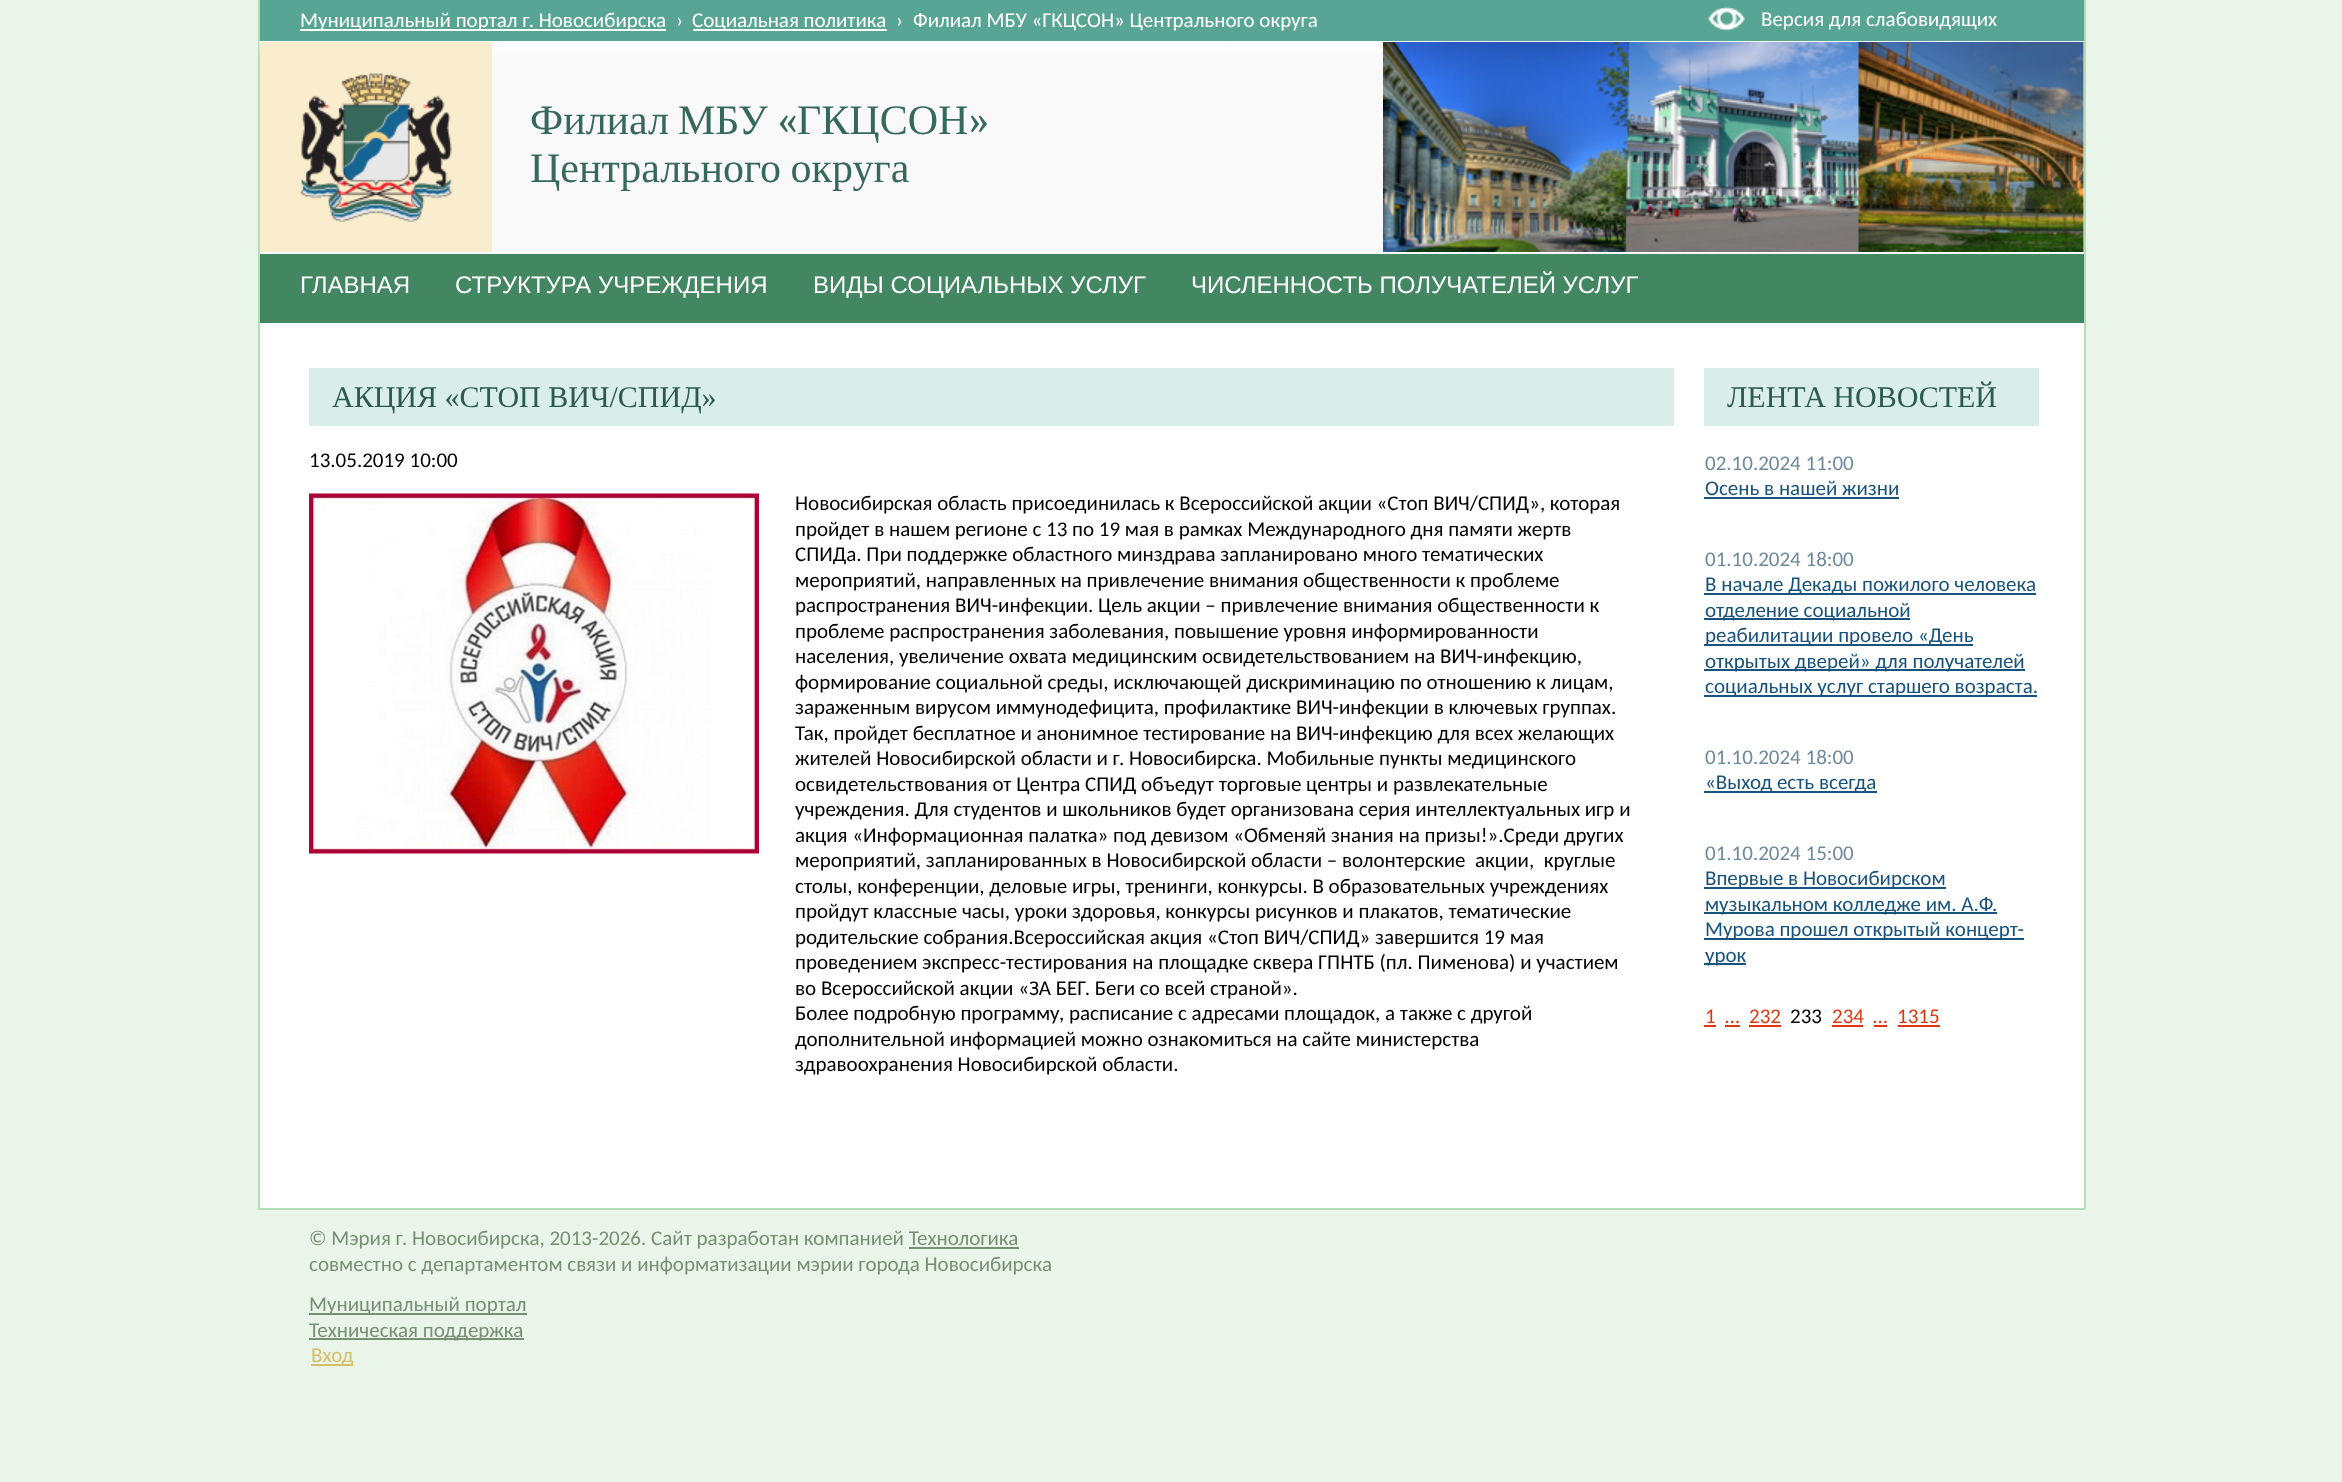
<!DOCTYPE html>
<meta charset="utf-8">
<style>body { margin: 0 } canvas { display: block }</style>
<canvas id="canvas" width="2342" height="1482"></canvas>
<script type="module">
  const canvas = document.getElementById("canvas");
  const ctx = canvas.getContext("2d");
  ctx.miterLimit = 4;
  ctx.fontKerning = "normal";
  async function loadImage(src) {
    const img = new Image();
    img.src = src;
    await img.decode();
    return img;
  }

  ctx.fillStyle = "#e9f5e9";
  ctx.fillRect(0, 0, 2342, 1482);
  ctx.fillStyle = "#ffffff";
  ctx.fillRect(260, 323, 1824, 885);
  ctx.fillStyle = "#b4deba";
  ctx.fillRect(2084, 0, 2, 1209);
  ctx.fillRect(258, 1208, 1827, 2);
  ctx.fillRect(258, 0, 2, 1209);
  ctx.fillStyle = "#f9f9f9";
  ctx.fillRect(260, 41, 1824, 213);
  ctx.drawImage(await loadImage("img1.png"), 259, 41, 1824, 16);
  ctx.fillStyle = "#58a593";
  ctx.fillRect(260, 0, 1824, 41);
  ctx.fillStyle = "#ffffff";
  ctx.fillRect(300, 29, 366, 2);
  ctx.font = "21px Carlito";
  ctx.fillText("Муниципальный портал г. Новосибирска", 300, 27);
  ctx.fillText("›", 676, 27);
  ctx.fillRect(693, 29, 194, 2);
  ctx.fillText("Социальная политика", 692, 27);
  ctx.fillText("›", 896, 27);
  ctx.fillText("Филиал МБУ «ГКЦСОН» Центрального округа", 913, 27);
  ctx.fillStyle = "#faedcd";
  ctx.fillRect(260, 42, 232, 210);
  ctx.drawImage(await loadImage("img2.png"), 300, 73, 152, 149);
  ctx.drawImage(await loadImage("img3.png"), 1383, 42, 701, 210);
  ctx.fillStyle = "#f9f9f9";
  ctx.fillRect(1228, 42, 1, 2);
  ctx.font = "42px Liberation Serif";
  ctx.fillStyle = "#36685c";
  ctx.fillText("Филиал", 530, 134);
  ctx.fillText("МБУ", 678, 134);
  ctx.font = "42px Caladea";
  ctx.fillText("«", 777, 134);
  ctx.font = "42px Liberation Serif";
  ctx.fillText("ГКЦСОН", 797, 134);
  ctx.font = "42px Caladea";
  ctx.fillText("»", 969, 134);
  ctx.wordSpacing = "-1px";
  ctx.font = "42px Liberation Serif";
  ctx.fillText("Центрального округа", 530, 182);
  ctx.drawImage(await loadImage("img4.png"), 1708, 6, 37, 25);
  ctx.wordSpacing = "0px";
  ctx.font = "21px Carlito";
  ctx.fillStyle = "#ffffff";
  ctx.fillText("Версия для слабовидящих", 1761, 26);
  ctx.fillStyle = "#428662";
  ctx.fillRect(260, 254, 1824, 69);
  ctx.font = "24px Liberation Sans";
  ctx.fillStyle = "#ffffff";
  ctx.fillText("ГЛАВНАЯ", 300, 293);
  ctx.fillText("СТРУКТУРА УЧРЕЖДЕНИЯ", 455, 293);
  ctx.fillText("ВИДЫ СОЦИАЛЬНЫХ УСЛУГ", 813, 293);
  ctx.fillText("ЧИСЛЕННОСТЬ ПОЛУЧАТЕЛЕЙ УСЛУГ", 1191, 293);
  ctx.fillStyle = "#d9eee9";
  ctx.fillRect(309, 368, 1365, 58);
  ctx.font = "30px Liberation Serif";
  ctx.fillStyle = "#2c5a50";
  ctx.fillText("АКЦИЯ «СТОП ВИЧ/СПИД»", 332, 407);
  ctx.font = "21px Carlito";
  ctx.fillStyle = "#000000";
  ctx.fillText("13.05.2019 10:00", 309, 467);
  ctx.drawImage(await loadImage("img5.png"), 309, 493, 450, 361);
  ctx.fillText("Новосибирская область присоединилась к Всероссийской акции «Стоп ВИЧ/СПИД», которая", 795, 510);
  ctx.fillText("пройдет в нашем регионе с 13 по 19 мая в рамках Международного дня памяти жертв", 795, 536);
  ctx.fillText("СПИДа. При поддержке областного минздрава запланировано много тематических", 795, 561);
  ctx.fillText("мероприятий, направленных на привлечение внимания общественности к проблеме", 795, 587);
  ctx.fillText("распространения ВИЧ-инфекции. Цель акции – привлечение внимания общественности к", 795, 612);
  ctx.fillText("проблеме распространения заболевания, повышение уровня информированности", 795, 638);
  ctx.fillText("населения, увеличение охвата медицинским освидетельствованием на ВИЧ-инфекцию,", 795, 663);
  ctx.fillText("формирование социальной среды, исключающей дискриминацию по отношению к лицам,", 795, 689);
  ctx.fillText("зараженным вирусом иммунодефицита, профилактике ВИЧ-инфекции в ключевых группах.", 795, 714);
  ctx.fillText("Так, пройдет бесплатное и анонимное тестирование на ВИЧ-инфекцию для всех желающих", 795, 740);
  ctx.fillText("жителей Новосибирской области и г. Новосибирска. Мобильные пункты медицинского", 795, 765);
  ctx.fillText("освидетельствования от Центра СПИД объедут торговые центры и развлекательные", 795, 791);
  ctx.fillText("учреждения. Для студентов и школьников будет организована серия интеллектуальных игр и", 795, 816);
  ctx.fillText("акция «Информационная палатка» под девизом «Обменяй знания на призы!».Среди других", 795, 842);
  ctx.fillText("мероприятий, запланированных в Новосибирской области – волонтерские  акции,  круглые", 795, 867);
  ctx.fillText("столы, конференции, деловые игры, тренинги, конкурсы. В образовательных учреждениях", 795, 893);
  ctx.fillText("пройдут классные часы, уроки здоровья, конкурсы рисунков и плакатов, тематические", 795, 918);
  ctx.fillText("родительские собрания.Всероссийская акция «Стоп ВИЧ/СПИД» завершится 19 мая", 795, 944);
  ctx.fillText("проведением экспресс-тестирования на площадке сквера ГПНТБ (пл. Пименова) и участием", 795, 969);
  ctx.fillText("во Всероссийской акции «ЗА БЕГ. Беги со всей страной».", 795, 995);
  ctx.fillText("Более подробную программу, расписание с адресами площадок, а также с другой", 795, 1020);
  ctx.fillText("дополнительной информацией можно ознакомиться на сайте министерства", 795, 1046);
  ctx.fillText("здравоохранения Новосибирской области.", 795, 1071);
  ctx.fillStyle = "#d9eee9";
  ctx.fillRect(1704, 368, 335, 58);
  ctx.font = "30px Liberation Serif";
  ctx.fillStyle = "#2c5a50";
  ctx.fillText("ЛЕНТА НОВОСТЕЙ", 1727, 407);
  ctx.font = "21px Carlito";
  ctx.fillStyle = "#6e899c";
  ctx.fillText("02.10.2024 11:00", 1705, 470);
  ctx.fillStyle = "#18537d";
  ctx.fillText("Осень в нашей жизни", 1705, 495);
  ctx.fillRect(1704, 497, 195, 2);
  ctx.fillStyle = "#6e899c";
  ctx.fillText("01.10.2024 18:00", 1705, 566);
  ctx.fillStyle = "#18537d";
  ctx.fillRect(1704, 593, 332, 2);
  ctx.fillText("В начале Декады пожилого человека", 1705, 591);
  ctx.fillRect(1704, 618, 206, 2);
  ctx.fillText("отделение социальной", 1705, 617);
  ctx.fillRect(1704, 644, 269, 2);
  ctx.fillText("реабилитации провело «День", 1705, 642);
  ctx.fillRect(1704, 669, 321, 2);
  ctx.fillText("открытых дверей» для получателей", 1705, 668);
  ctx.fillRect(1704, 695, 333, 2);
  ctx.fillText("социальных услуг старшего возраста.", 1705, 693);
  ctx.fillStyle = "#6e899c";
  ctx.fillText("01.10.2024 18:00", 1705, 764);
  ctx.fillStyle = "#18537d";
  ctx.fillRect(1704, 791, 173, 2);
  ctx.fillText("«Выход есть всегда", 1705, 789);
  ctx.fillStyle = "#6e899c";
  ctx.fillText("01.10.2024 15:00", 1705, 860);
  ctx.fillStyle = "#18537d";
  ctx.fillRect(1704, 887, 242, 2);
  ctx.fillText("Впервые в Новосибирском", 1705, 885);
  ctx.fillRect(1704, 912, 293, 2);
  ctx.fillText("музыкальном колледже им. А.Ф.", 1705, 911);
  ctx.fillRect(1704, 938, 320, 2);
  ctx.fillText("Мурова прошел открытый концерт-", 1705, 936);
  ctx.fillRect(1704, 963, 42, 2);
  ctx.fillText("урок", 1705, 962);
  ctx.fillStyle = "#df3710";
  ctx.fillText("1", 1705, 1023);
  ctx.fillRect(1704, 1025, 12, 2);
  ctx.fillText("…", 1725, 1023);
  ctx.fillRect(1725, 1025, 15, 2);
  ctx.fillText("232", 1749, 1023);
  ctx.fillRect(1749, 1025, 32, 2);
  ctx.fillStyle = "#000000";
  ctx.fillText("233", 1790, 1023);
  ctx.fillStyle = "#df3710";
  ctx.fillText("234", 1832, 1023);
  ctx.fillRect(1832, 1025, 31, 2);
  ctx.fillText("…", 1873, 1023);
  ctx.fillRect(1874, 1025, 13, 2);
  ctx.fillText("1315", 1897, 1023);
  ctx.fillRect(1898, 1025, 42, 2);
  ctx.fillStyle = "#778f75";
  ctx.fillText("© Мэрия г. Новосибирска, 2013-2026. Сайт разработан компанией Технологика", 309, 1245);
  ctx.fillRect(909, 1247, 110, 2);
  ctx.fillText("совместно с департаментом связи и информатизации мэрии города Новосибирска", 309, 1271);
  ctx.fillRect(309, 1313, 218, 2);
  ctx.fillText("Муниципальный портал", 309, 1311);
  ctx.fillRect(309, 1338, 215, 2);
  ctx.fillText("Техническая поддержка", 309, 1337);
  ctx.fillStyle = "#d6c06a";
  ctx.fillRect(311, 1364, 42, 2);
  ctx.fillText("Вход", 311, 1362);
</script>
